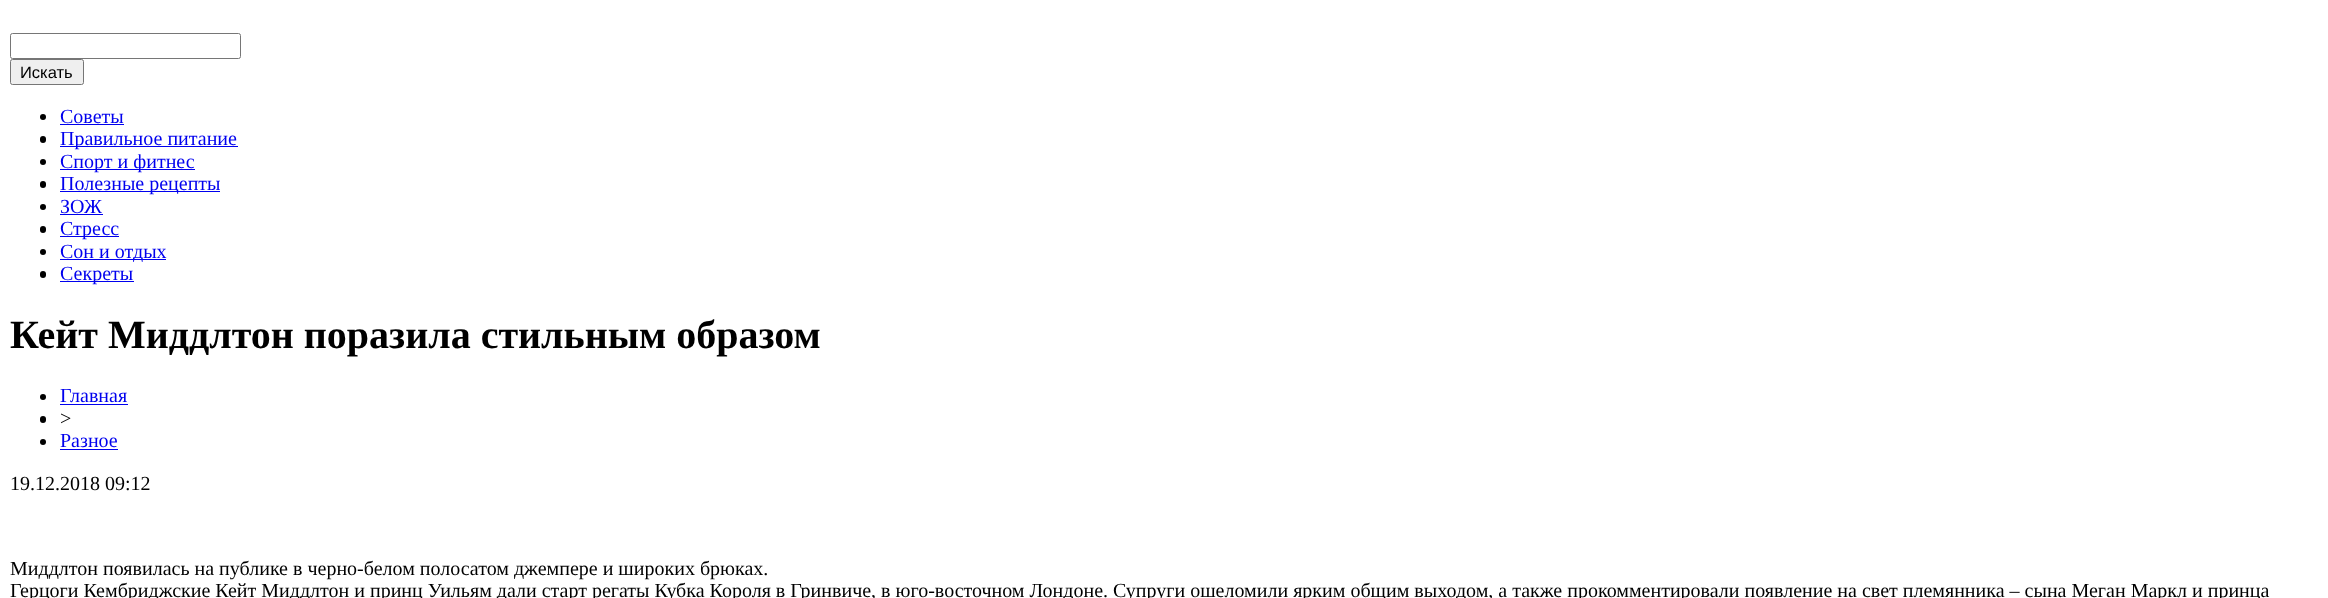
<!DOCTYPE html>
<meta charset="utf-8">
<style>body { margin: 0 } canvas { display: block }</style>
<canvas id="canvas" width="2328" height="598"></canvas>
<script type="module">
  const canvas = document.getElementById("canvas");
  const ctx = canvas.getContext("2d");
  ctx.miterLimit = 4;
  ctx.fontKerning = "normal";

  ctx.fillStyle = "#ffffff";
  ctx.fillRect(0, 0, 2328, 598);
  ctx.beginPath();
  ctx.roundRect(10.5, 33.5, 230, 25, 2);
  ctx.strokeStyle = "#767676";
  ctx.stroke();
  ctx.fillStyle = "#efefef";
  ctx.beginPath();
  ctx.roundRect(10.5, 59.5, 73, 25, 2);
  ctx.fill();
  ctx.stroke();
  ctx.font = "16.5px Liberation Sans";
  ctx.fillStyle = "#000000";
  ctx.fillText("Искать", 20, 78);
  ctx.beginPath();
  ctx.arc(43, 117, 3, 0, Math.PI * 2);
  ctx.fill();
  ctx.font = "20px Liberation Serif";
  ctx.fillStyle = "#0000ee";
  ctx.fillText("Советы", 60, 123);
  ctx.fillRect(60, 124, 64, 1);
  ctx.fillStyle = "#000000";
  ctx.beginPath();
  ctx.roundRect(40, 136, 6, 7, 3);
  ctx.fill();
  ctx.fillStyle = "#0000ee";
  ctx.fillRect(60, 146, 178, 1);
  ctx.fillText("Правильное питание", 60, 145);
  ctx.fillStyle = "#000000";
  ctx.beginPath();
  ctx.arc(43, 162, 3, 0, Math.PI * 2);
  ctx.fill();
  ctx.fillStyle = "#0000ee";
  ctx.fillRect(60, 169, 135, 1);
  ctx.fillText("Спорт и фитнес", 60, 168);
  ctx.fillStyle = "#000000";
  ctx.beginPath();
  ctx.roundRect(40, 181, 6, 7, 3);
  ctx.fill();
  ctx.fillStyle = "#0000ee";
  ctx.fillRect(60, 191, 160, 1);
  ctx.fillText("Полезные рецепты", 60, 190);
  ctx.fillStyle = "#000000";
  ctx.beginPath();
  ctx.arc(43, 207, 3, 0, Math.PI * 2);
  ctx.fill();
  ctx.fillStyle = "#0000ee";
  ctx.fillText("ЗОЖ", 60, 213);
  ctx.fillRect(60, 214, 43, 1);
  ctx.fillStyle = "#000000";
  ctx.beginPath();
  ctx.roundRect(40, 226, 6, 7, 3);
  ctx.fill();
  ctx.fillStyle = "#0000ee";
  ctx.fillRect(60, 236, 59, 1);
  ctx.fillText("Стресс", 60, 235);
  ctx.fillStyle = "#000000";
  ctx.beginPath();
  ctx.arc(43, 252, 3, 0, Math.PI * 2);
  ctx.fill();
  ctx.fillStyle = "#0000ee";
  ctx.fillRect(60, 259, 106, 1);
  ctx.fillText("Сон и отдых", 60, 258);
  ctx.fillStyle = "#000000";
  ctx.beginPath();
  ctx.roundRect(40, 271, 6, 7, 3);
  ctx.fill();
  ctx.fillStyle = "#0000ee";
  ctx.fillRect(60, 281, 74, 1);
  ctx.fillText("Секреты", 60, 280);
  ctx.font = "bold 40px Liberation Serif";
  ctx.fillStyle = "#000000";
  ctx.fillText("Кейт Миддлтон поразила стильным образом", 10, 348);
  ctx.beginPath();
  ctx.arc(43, 397, 3, 0, Math.PI * 2);
  ctx.fill();
  ctx.font = "20px Liberation Serif";
  ctx.fillStyle = "#0000ee";
  ctx.fillText("Главная", 60, 402);
  ctx.fillRect(60, 404, 68, 1);
  ctx.fillStyle = "#000000";
  ctx.beginPath();
  ctx.roundRect(40, 416, 6, 7, 3);
  ctx.fill();
  ctx.fillText(">", 60, 425);
  ctx.beginPath();
  ctx.arc(43, 442, 3, 0, Math.PI * 2);
  ctx.fill();
  ctx.fillStyle = "#0000ee";
  ctx.fillText("Разное", 60, 447);
  ctx.fillRect(60, 449, 58, 1);
  ctx.fillStyle = "#000000";
  ctx.fillText("19.12.2018 09:12", 10, 490);
  ctx.fillText("Миддлтон появилась на публике в черно-белом полосатом джемпере и широких брюках.", 10, 575);
  ctx.fillText("Герцоги Кембриджские Кейт Миддлтон и принц Уильям дали старт регаты Кубка Короля в Гринвиче, в юго-восточном Лондоне. Супруги ошеломили ярким общим выходом, а также прокомментировали появление на свет племянника – сына Меган Маркл и принца", 10, 597);
</script>
